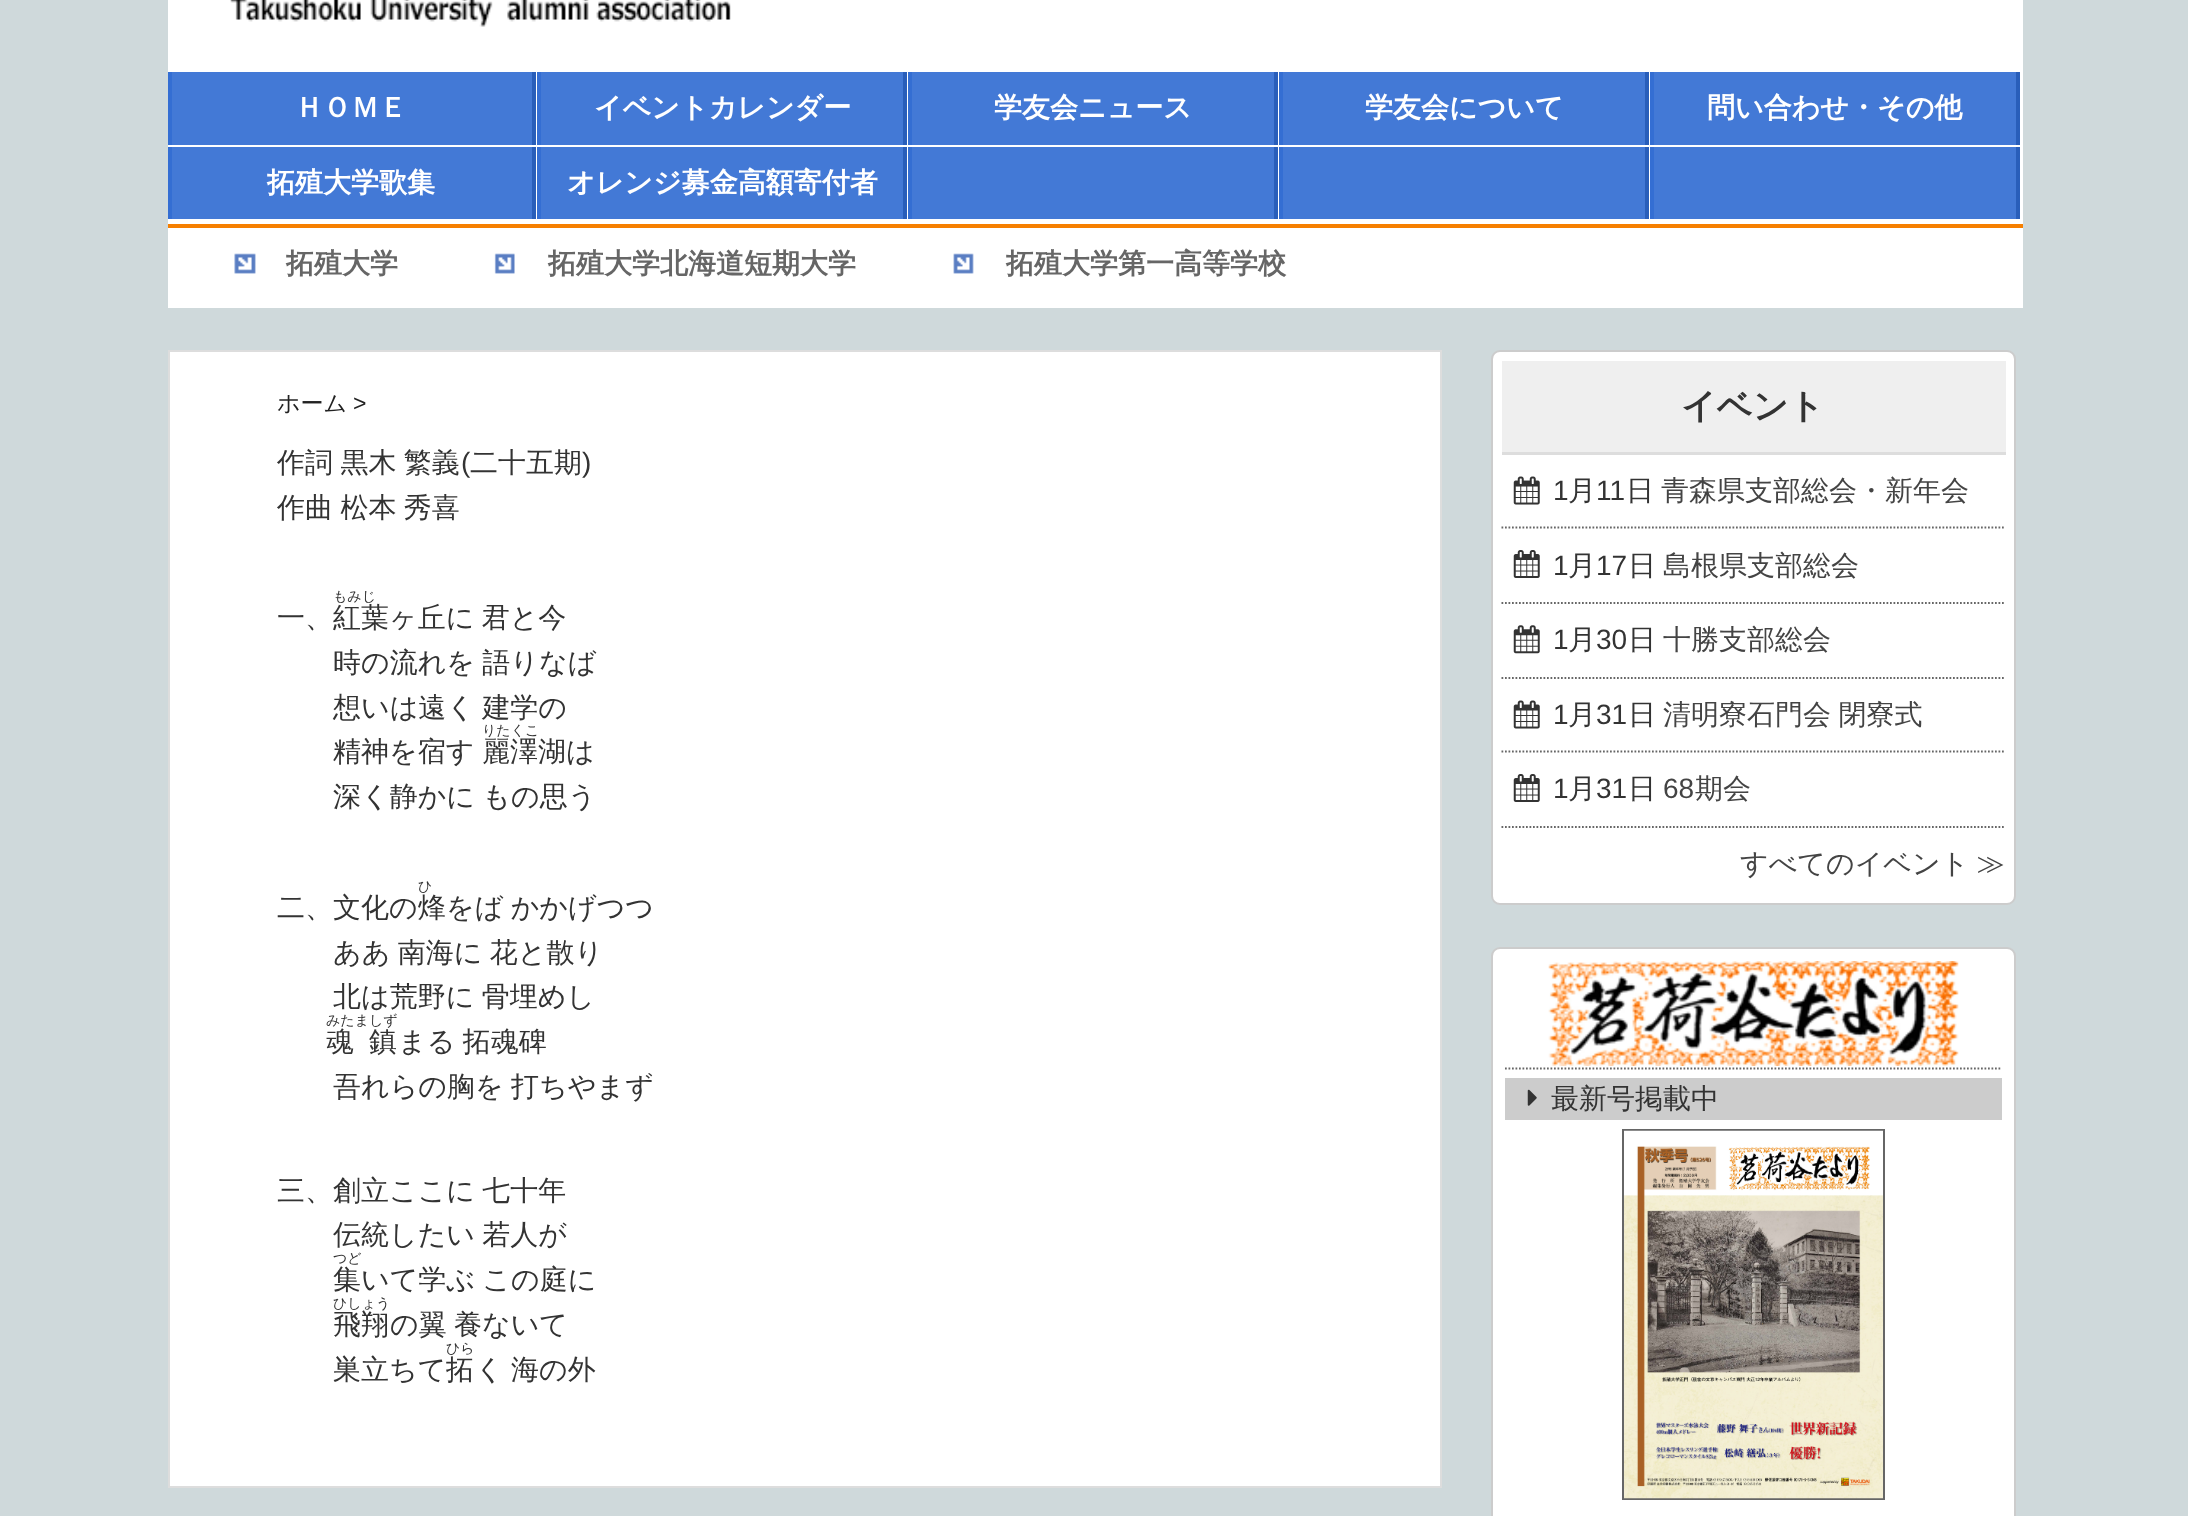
<!DOCTYPE html>
<meta charset="utf-8">
<style>body { margin: 0 } canvas { display: block }</style>
<canvas id="canvas" width="2188" height="1516"></canvas>
<script type="module">
  const canvas = document.getElementById("canvas");
  const ctx = canvas.getContext("2d");
  ctx.miterLimit = 4;
  ctx.fontKerning = "normal";
  async function loadImage(src) {
    const img = new Image();
    img.src = src;
    await img.decode();
    return img;
  }

  ctx.fillStyle = "#cfd9db";
  ctx.fillRect(0, 0, 2188, 1516);
  ctx.fillStyle = "#ffffff";
  ctx.fillRect(168, 0, 1855, 308);
  ctx.drawImage(await loadImage("img1.png"), 230, 0, 501, 27);
  ctx.fillStyle = "#4379d6";
  ctx.fillRect(172, 72, 360, 73);
  ctx.fillStyle = "#295eba";
  ctx.fillRect(532, 72, 4, 73);
  ctx.fillStyle = "#346ed3";
  ctx.fillRect(168, 72, 4, 73);
  ctx.font = "bold 28px WenQuanYi Zen Hei";
  ctx.fillStyle = "#ffffff";
  ctx.fillText("ＨＯＭＥ", 295, 117);
  ctx.fillStyle = "#4379d6";
  ctx.fillRect(541, 72, 362, 73);
  ctx.fillStyle = "#295eba";
  ctx.fillRect(903, 72, 4, 73);
  ctx.fillStyle = "#346ed3";
  ctx.fillRect(537, 72, 4, 73);
  ctx.fillStyle = "#ffffff";
  ctx.fillText("イベントカレンダー", 594, 117);
  ctx.fillStyle = "#4379d6";
  ctx.fillRect(912, 72, 362, 73);
  ctx.fillStyle = "#295eba";
  ctx.fillRect(1274, 72, 4, 73);
  ctx.fillStyle = "#346ed3";
  ctx.fillRect(908, 72, 4, 73);
  ctx.fillStyle = "#ffffff";
  ctx.fillText("学友会ニュース", 994, 117);
  ctx.fillStyle = "#4379d6";
  ctx.fillRect(1283, 72, 362, 73);
  ctx.fillStyle = "#295eba";
  ctx.fillRect(1645, 72, 4, 73);
  ctx.fillStyle = "#346ed3";
  ctx.fillRect(1279, 72, 4, 73);
  ctx.fillStyle = "#ffffff";
  ctx.fillText("学友会について", 1365, 117);
  ctx.fillStyle = "#4379d6";
  ctx.fillRect(1654, 72, 362, 73);
  ctx.fillStyle = "#295eba";
  ctx.fillRect(2016, 72, 4, 73);
  ctx.fillStyle = "#346ed3";
  ctx.fillRect(1650, 72, 4, 73);
  ctx.fillStyle = "#ffffff";
  ctx.fillText("問い合わせ・その他", 1707, 117);
  ctx.fillStyle = "#4379d6";
  ctx.fillRect(172, 147, 360, 72);
  ctx.fillStyle = "#295eba";
  ctx.fillRect(532, 147, 4, 72);
  ctx.fillStyle = "#346ed3";
  ctx.fillRect(168, 147, 4, 72);
  ctx.fillStyle = "#ffffff";
  ctx.fillText("拓殖大学歌集", 267, 192);
  ctx.fillStyle = "#4379d6";
  ctx.fillRect(541, 147, 362, 72);
  ctx.fillStyle = "#295eba";
  ctx.fillRect(903, 147, 4, 72);
  ctx.fillStyle = "#346ed3";
  ctx.fillRect(537, 147, 4, 72);
  ctx.fillStyle = "#ffffff";
  ctx.fillText("オレンジ募金高額寄付者", 567, 192);
  ctx.fillStyle = "#4379d6";
  ctx.fillRect(912, 147, 362, 72);
  ctx.fillStyle = "#295eba";
  ctx.fillRect(1274, 147, 4, 72);
  ctx.fillStyle = "#346ed3";
  ctx.fillRect(908, 147, 4, 72);
  ctx.fillStyle = "#4379d6";
  ctx.fillRect(1283, 147, 362, 72);
  ctx.fillStyle = "#295eba";
  ctx.fillRect(1645, 147, 4, 72);
  ctx.fillStyle = "#346ed3";
  ctx.fillRect(1279, 147, 4, 72);
  ctx.fillStyle = "#4379d6";
  ctx.fillRect(1654, 147, 362, 72);
  ctx.fillStyle = "#295eba";
  ctx.fillRect(2016, 147, 4, 72);
  ctx.fillStyle = "#346ed3";
  ctx.fillRect(1650, 147, 4, 72);
  ctx.fillStyle = "#f67f00";
  ctx.fillRect(168, 224, 1855, 4);
  ctx.drawImage(await loadImage("img2.png"), 234, 253, 22, 21);
  ctx.fillStyle = "#666666";
  ctx.fillText("拓殖大学", 286, 273);
  ctx.drawImage(await loadImage("img3.png"), 494, 253, 21, 21);
  ctx.fillText("拓殖大学北海道短期大学", 548, 273);
  ctx.drawImage(await loadImage("img4.png"), 953, 253, 21, 21);
  ctx.fillText("拓殖大学第一高等学校", 1006, 273);
  ctx.fillStyle = "#ffffff";
  ctx.beginPath();
  ctx.rect(169, 351, 1272, 1136);
  ctx.fill();
  ctx.strokeStyle = "#dddddd";
  ctx.lineWidth = 2;
  ctx.stroke();
  ctx.font = "500 23px WenQuanYi Zen Hei";
  ctx.fillStyle = "#222222";
  ctx.fillText("ホーム", 277, 411);
  ctx.font = "23px Liberation Sans";
  ctx.fillText(">", 353, 411);
  ctx.wordSpacing = "-1px";
  ctx.font = "500 28px WenQuanYi Zen Hei";
  ctx.fillStyle = "#333333";
  ctx.fillText("作詞 黒木 繁義", 277, 472);
  ctx.wordSpacing = "0px";
  ctx.font = "28px Liberation Sans";
  ctx.fillText("(", 461, 472);
  ctx.font = "500 28px WenQuanYi Zen Hei";
  ctx.fillText("二十五期", 470, 472);
  ctx.font = "28px Liberation Sans";
  ctx.fillText(")", 582, 472);
  ctx.wordSpacing = "-1px";
  ctx.font = "500 28px WenQuanYi Zen Hei";
  ctx.fillText("作曲 松本 秀喜", 277, 517);
  ctx.wordSpacing = "0px";
  ctx.font = "500 14px WenQuanYi Zen Hei";
  ctx.fillText("もみじ", 333, 601);
  ctx.font = "500 28px WenQuanYi Zen Hei";
  ctx.fillText("一、紅葉", 277, 627);
  ctx.wordSpacing = "-1px";
  ctx.fillText("ヶ丘に 君と今", 389, 627);
  ctx.fillText("時の流れを 語りなば", 333, 672);
  ctx.fillText("想いは遠く 建学の", 333, 717);
  ctx.wordSpacing = "0px";
  ctx.fillText("精神を宿す", 333, 761);
  ctx.font = "500 14px WenQuanYi Zen Hei";
  ctx.fillText("りたくこ", 482, 735);
  ctx.font = "500 28px WenQuanYi Zen Hei";
  ctx.fillText("麗澤湖は", 482, 761);
  ctx.wordSpacing = "-1px";
  ctx.fillText("深く静かに もの思う", 333, 806);
  ctx.wordSpacing = "0px";
  ctx.font = "500 14px WenQuanYi Zen Hei";
  ctx.fillText("ひ", 418, 891);
  ctx.font = "500 28px WenQuanYi Zen Hei";
  ctx.fillText("二、文化の烽", 277, 917);
  ctx.wordSpacing = "-1px";
  ctx.fillText("をば かかげつつ", 446, 917);
  ctx.fillText("ああ 南海に 花と散り", 333, 962);
  ctx.fillText("北は荒野に 骨埋めし", 333, 1006);
  ctx.wordSpacing = "0px";
  ctx.font = "500 14px WenQuanYi Zen Hei";
  ctx.fillText("みたましず", 326, 1025);
  ctx.font = "500 28px WenQuanYi Zen Hei";
  ctx.fillText("魂", 326, 1051);
  ctx.wordSpacing = "-1px";
  ctx.fillText("まる 拓魂碑", 398, 1051);
  ctx.wordSpacing = "0px";
  ctx.fillText("鎮", 369, 1051);
  ctx.wordSpacing = "-1px";
  ctx.fillText("吾れらの胸を 打ちやまず", 333, 1096);
  ctx.fillText("三、創立ここに 七十年", 277, 1200);
  ctx.fillText("伝統したい 若人が", 333, 1244);
  ctx.wordSpacing = "0px";
  ctx.font = "500 14px WenQuanYi Zen Hei";
  ctx.fillText("つど", 333, 1263);
  ctx.font = "500 28px WenQuanYi Zen Hei";
  ctx.fillText("集", 333, 1289);
  ctx.wordSpacing = "-1px";
  ctx.fillText("いて学ぶ この庭に", 361, 1289);
  ctx.wordSpacing = "0px";
  ctx.font = "500 14px WenQuanYi Zen Hei";
  ctx.fillText("ひしょう", 333, 1308);
  ctx.font = "500 28px WenQuanYi Zen Hei";
  ctx.fillText("飛翔", 333, 1334);
  ctx.wordSpacing = "-1px";
  ctx.fillText("の翼 養ないて", 390, 1334);
  ctx.wordSpacing = "0px";
  ctx.fillText("巣立ちて", 333, 1379);
  ctx.font = "500 14px WenQuanYi Zen Hei";
  ctx.fillText("ひら", 446, 1353);
  ctx.font = "500 28px WenQuanYi Zen Hei";
  ctx.fillText("拓", 446, 1379);
  ctx.wordSpacing = "-1px";
  ctx.fillText("く 海の外", 475, 1379);
  ctx.fillStyle = "#ffffff";
  ctx.beginPath();
  ctx.roundRect(1492, 351, 523, 553, 8);
  ctx.fill();
  ctx.strokeStyle = "#cccccc";
  ctx.stroke();
  ctx.fillStyle = "#efefef";
  ctx.fillRect(1502, 361, 504, 91);
  ctx.fillStyle = "#dddddd";
  ctx.fillRect(1502, 452, 504, 3);
  ctx.wordSpacing = "0px";
  ctx.font = "bold 35px WenQuanYi Zen Hei";
  ctx.fillStyle = "#333333";
  ctx.fillText("イベント", 1681, 418);
  ctx.beginPath();
  ctx.moveTo(1501.5, 527.5);
  ctx.lineTo(2005.5, 527.5);
  ctx.strokeStyle = "#666666";
  ctx.lineWidth = 1.8;
  ctx.setLineDash([1.75, 1.75]);
  ctx.stroke();
  ctx.drawImage(await loadImage("img5.png"), 1513, 476, 27, 29);
  ctx.font = "28px Liberation Sans";
  ctx.fillText("1", 1553, 500);
  ctx.font = "500 28px WenQuanYi Zen Hei";
  ctx.fillText("月", 1568, 500);
  ctx.font = "28px Liberation Sans";
  ctx.fillText("11", 1596, 500);
  ctx.font = "500 28px WenQuanYi Zen Hei";
  ctx.fillText("日", 1626, 500);
  ctx.fillStyle = "#444444";
  ctx.fillText("青森県支部総会・新年会", 1661, 500);
  ctx.beginPath();
  ctx.moveTo(1501.5, 603);
  ctx.lineTo(2005.5, 603);
  ctx.stroke();
  ctx.drawImage(await loadImage("img6.png"), 1513, 550, 27, 28);
  ctx.font = "28px Liberation Sans";
  ctx.fillStyle = "#333333";
  ctx.fillText("1", 1553, 575);
  ctx.font = "500 28px WenQuanYi Zen Hei";
  ctx.fillText("月", 1568, 575);
  ctx.font = "28px Liberation Sans";
  ctx.fillText("17", 1596, 575);
  ctx.font = "500 28px WenQuanYi Zen Hei";
  ctx.fillText("日", 1628, 575);
  ctx.fillStyle = "#444444";
  ctx.fillText("島根県支部総会", 1663, 575);
  ctx.beginPath();
  ctx.moveTo(1501.5, 678);
  ctx.lineTo(2005.5, 678);
  ctx.stroke();
  ctx.drawImage(await loadImage("img7.png"), 1513, 625, 27, 29);
  ctx.font = "28px Liberation Sans";
  ctx.fillStyle = "#333333";
  ctx.fillText("1", 1553, 649);
  ctx.font = "500 28px WenQuanYi Zen Hei";
  ctx.fillText("月", 1568, 649);
  ctx.font = "28px Liberation Sans";
  ctx.fillText("30", 1596, 649);
  ctx.font = "500 28px WenQuanYi Zen Hei";
  ctx.fillText("日", 1628, 649);
  ctx.fillStyle = "#444444";
  ctx.fillText("十勝支部総会", 1663, 649);
  ctx.beginPath();
  ctx.moveTo(1501.5, 751.5);
  ctx.lineTo(2005.5, 751.5);
  ctx.stroke();
  ctx.drawImage(await loadImage("img5.png"), 1513, 700, 27, 29);
  ctx.font = "28px Liberation Sans";
  ctx.fillStyle = "#333333";
  ctx.fillText("1", 1553, 724);
  ctx.font = "500 28px WenQuanYi Zen Hei";
  ctx.fillText("月", 1568, 724);
  ctx.font = "28px Liberation Sans";
  ctx.fillText("31", 1596, 724);
  ctx.font = "500 28px WenQuanYi Zen Hei";
  ctx.fillText("日", 1628, 724);
  ctx.wordSpacing = "-1px";
  ctx.fillStyle = "#444444";
  ctx.fillText("清明寮石門会 閉寮式", 1663, 724);
  ctx.beginPath();
  ctx.moveTo(1501.5, 827);
  ctx.lineTo(2005.5, 827);
  ctx.stroke();
  ctx.drawImage(await loadImage("img6.png"), 1513, 774, 27, 28);
  ctx.wordSpacing = "0px";
  ctx.font = "28px Liberation Sans";
  ctx.fillStyle = "#333333";
  ctx.fillText("1", 1553, 798);
  ctx.font = "500 28px WenQuanYi Zen Hei";
  ctx.fillText("月", 1568, 798);
  ctx.font = "28px Liberation Sans";
  ctx.fillText("31", 1596, 798);
  ctx.font = "500 28px WenQuanYi Zen Hei";
  ctx.fillText("日", 1628, 798);
  ctx.font = "28px Liberation Sans";
  ctx.fillStyle = "#444444";
  ctx.fillText("68", 1663, 798);
  ctx.font = "500 28px WenQuanYi Zen Hei";
  ctx.fillText("期会", 1695, 798);
  ctx.wordSpacing = "-1px";
  ctx.fillText("すべてのイベント ≫", 1740, 873);
  ctx.fillStyle = "#ffffff";
  ctx.beginPath();
  ctx.roundRect(1492, 948, 523, 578, 8);
  ctx.fill();
  ctx.strokeStyle = "#cccccc";
  ctx.lineWidth = 2;
  ctx.setLineDash([]);
  ctx.stroke();
  ctx.drawImage(await loadImage("img8.png"), 1548, 961, 411, 105);
  ctx.beginPath();
  ctx.moveTo(1505, 1068.5);
  ctx.lineTo(2002, 1068.5);
  ctx.strokeStyle = "#666666";
  ctx.lineWidth = 1.8;
  ctx.setLineDash([1.75, 1.75]);
  ctx.stroke();
  ctx.fillStyle = "#cccccc";
  ctx.fillRect(1505, 1078, 497, 42);
  ctx.drawImage(await loadImage("img9.png"), 1527, 1089, 10, 17);
  ctx.wordSpacing = "0px";
  ctx.fillStyle = "#333333";
  ctx.fillText("最新号掲載中", 1551, 1108);
  ctx.lineWidth = 2;
  ctx.setLineDash([]);
  ctx.strokeRect(1623, 1130, 261, 369);
  ctx.drawImage(await loadImage("img10.png"), 1624, 1130, 259, 369);
</script>
